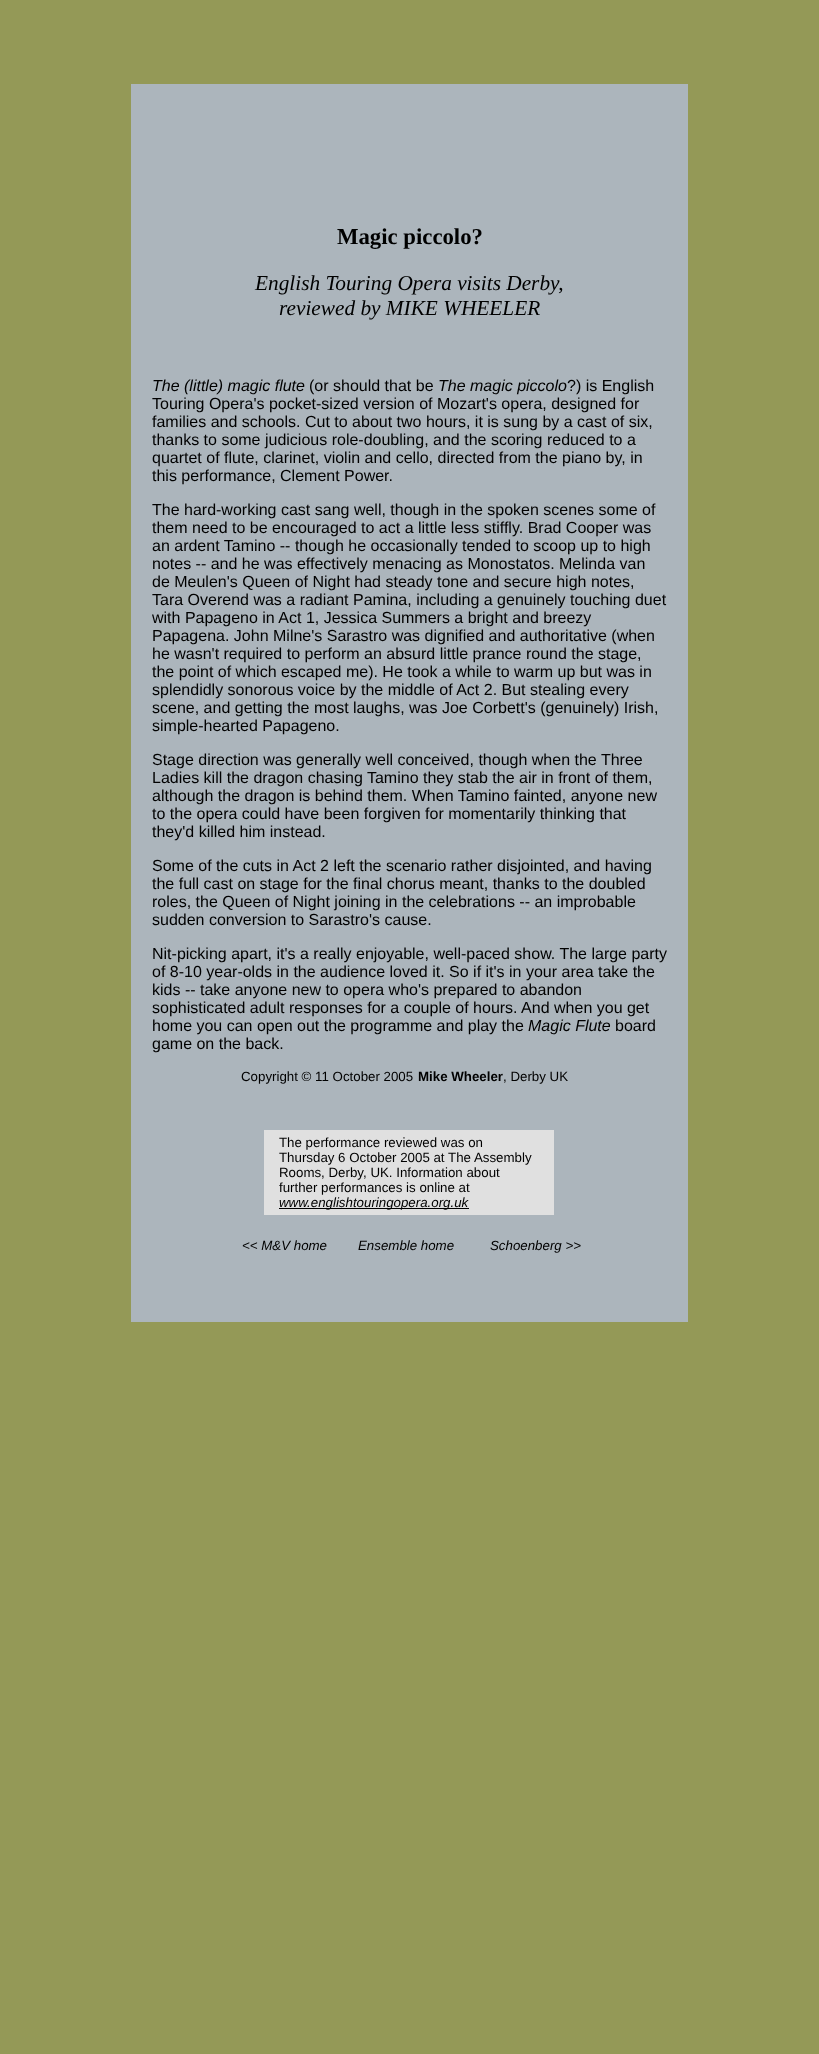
<!DOCTYPE html>
<meta charset="utf-8">
<style>body { margin: 0 } canvas { display: block }</style>
<canvas id="canvas" width="819" height="2054"></canvas>
<script type="module">
  const canvas = document.getElementById("canvas");
  const ctx = canvas.getContext("2d");
  ctx.miterLimit = 4;
  ctx.fontKerning = "normal";

  ctx.fillStyle = "#949957";
  ctx.fillRect(0, 0, 819, 2054);
  ctx.fillStyle = "#acb5bc";
  ctx.fillRect(131, 84, 557, 1238);
  ctx.font = "bold 22.75px Liberation Serif";
  ctx.fillStyle = "#000000";
  ctx.fillText("Magic piccolo?", 337, 244);
  ctx.font = "italic 21.3px Liberation Serif";
  ctx.fillText("English Touring Opera visits Derby,", 255, 290);
  ctx.fillText("reviewed by MIKE WHEELER", 279, 315);
  ctx.font = "italic 16px Liberation Sans";
  ctx.fillText("The (little) magic flute", 152, 391);
  ctx.font = "16px Liberation Sans";
  ctx.fillText("(or should that be", 309, 391);
  ctx.font = "italic 16px Liberation Sans";
  ctx.fillText("The magic piccolo", 438, 391);
  ctx.font = "16px Liberation Sans";
  ctx.fillText("?) is English", 567, 391);
  ctx.fillText("Touring Opera's pocket-sized version of Mozart's opera, designed for", 152, 409);
  ctx.fillText("families and schools. Cut to about two hours, it is sung by a cast of six,", 152, 427);
  ctx.fillText("thanks to some judicious role-doubling, and the scoring reduced to a", 152, 445);
  ctx.fillText("quartet of flute, clarinet, violin and cello, directed from the piano by, in", 152, 463);
  ctx.fillText("this performance, Clement Power.", 152, 481);
  ctx.fillText("The hard-working cast sang well, though in the spoken scenes some of", 152, 515);
  ctx.fillText("them need to be encouraged to act a little less stiffly. Brad Cooper was", 152, 533);
  ctx.fillText("an ardent Tamino -- though he occasionally tended to scoop up to high", 152, 551);
  ctx.fillText("notes -- and he was effectively menacing as Monostatos. Melinda van", 152, 569);
  ctx.fillText("de Meulen's Queen of Night had steady tone and secure high notes,", 152, 587);
  ctx.fillText("Tara Overend was a radiant Pamina, including a genuinely touching duet", 152, 605);
  ctx.fillText("with Papageno in Act 1, Jessica Summers a bright and breezy", 152, 623);
  ctx.fillText("Papagena. John Milne's Sarastro was dignified and authoritative (when", 152, 641);
  ctx.fillText("he wasn't required to perform an absurd little prance round the stage,", 152, 659);
  ctx.fillText("the point of which escaped me). He took a while to warm up but was in", 152, 677);
  ctx.fillText("splendidly sonorous voice by the middle of Act 2. But stealing every", 152, 695);
  ctx.fillText("scene, and getting the most laughs, was Joe Corbett's (genuinely) Irish,", 152, 713);
  ctx.fillText("simple-hearted Papageno.", 152, 731);
  ctx.fillText("Stage direction was generally well conceived, though when the Three", 152, 765);
  ctx.fillText("Ladies kill the dragon chasing Tamino they stab the air in front of them,", 152, 783);
  ctx.fillText("although the dragon is behind them. When Tamino fainted, anyone new", 152, 801);
  ctx.fillText("to the opera could have been forgiven for momentarily thinking that", 152, 819);
  ctx.fillText("they'd killed him instead.", 152, 837);
  ctx.fillText("Some of the cuts in Act 2 left the scenario rather disjointed, and having", 152, 871);
  ctx.fillText("the full cast on stage for the final chorus meant, thanks to the doubled", 152, 889);
  ctx.fillText("roles, the Queen of Night joining in the celebrations -- an improbable", 152, 907);
  ctx.fillText("sudden conversion to Sarastro's cause.", 152, 925);
  ctx.fillText("Nit-picking apart, it's a really enjoyable, well-paced show. The large party", 152, 959);
  ctx.fillText("of 8-10 year-olds in the audience loved it. So if it's in your area take the", 152, 977);
  ctx.fillText("kids -- take anyone new to opera who's prepared to abandon", 152, 995);
  ctx.fillText("sophisticated adult responses for a couple of hours. And when you get", 152, 1013);
  ctx.fillText("home you can open out the programme and play the", 152, 1031);
  ctx.font = "italic 16px Liberation Sans";
  ctx.fillText("Magic Flute", 528, 1031);
  ctx.font = "16px Liberation Sans";
  ctx.fillText("board", 615, 1031);
  ctx.fillText("game on the back.", 152, 1049);
  ctx.font = "13.3px Liberation Sans";
  ctx.fillText("Copyright © 11 October 2005", 241, 1081);
  ctx.font = "bold 13.3px Liberation Sans";
  ctx.fillText("Mike Wheeler", 418, 1081);
  ctx.font = "13.3px Liberation Sans";
  ctx.fillText(", Derby UK", 503, 1081);
  ctx.fillStyle = "#e0e0e0";
  ctx.fillRect(264, 1130, 290, 85);
  ctx.fillStyle = "#000000";
  ctx.fillText("The performance reviewed was on", 279, 1147);
  ctx.fillText("Thursday 6 October 2005 at The Assembly", 279, 1162);
  ctx.fillText("Rooms, Derby, UK. Information about", 279, 1177);
  ctx.fillText("further performances is online at", 279, 1192);
  ctx.fillRect(279, 1208, 190, 1);
  ctx.font = "italic 13.3px Liberation Sans";
  ctx.fillText("www.englishtouringopera.org.uk", 279, 1207);
  ctx.fillText("<< M&V home", 242, 1250);
  ctx.fillText("Ensemble home", 358, 1250);
  ctx.fillText("Schoenberg >>", 490, 1250);
</script>
